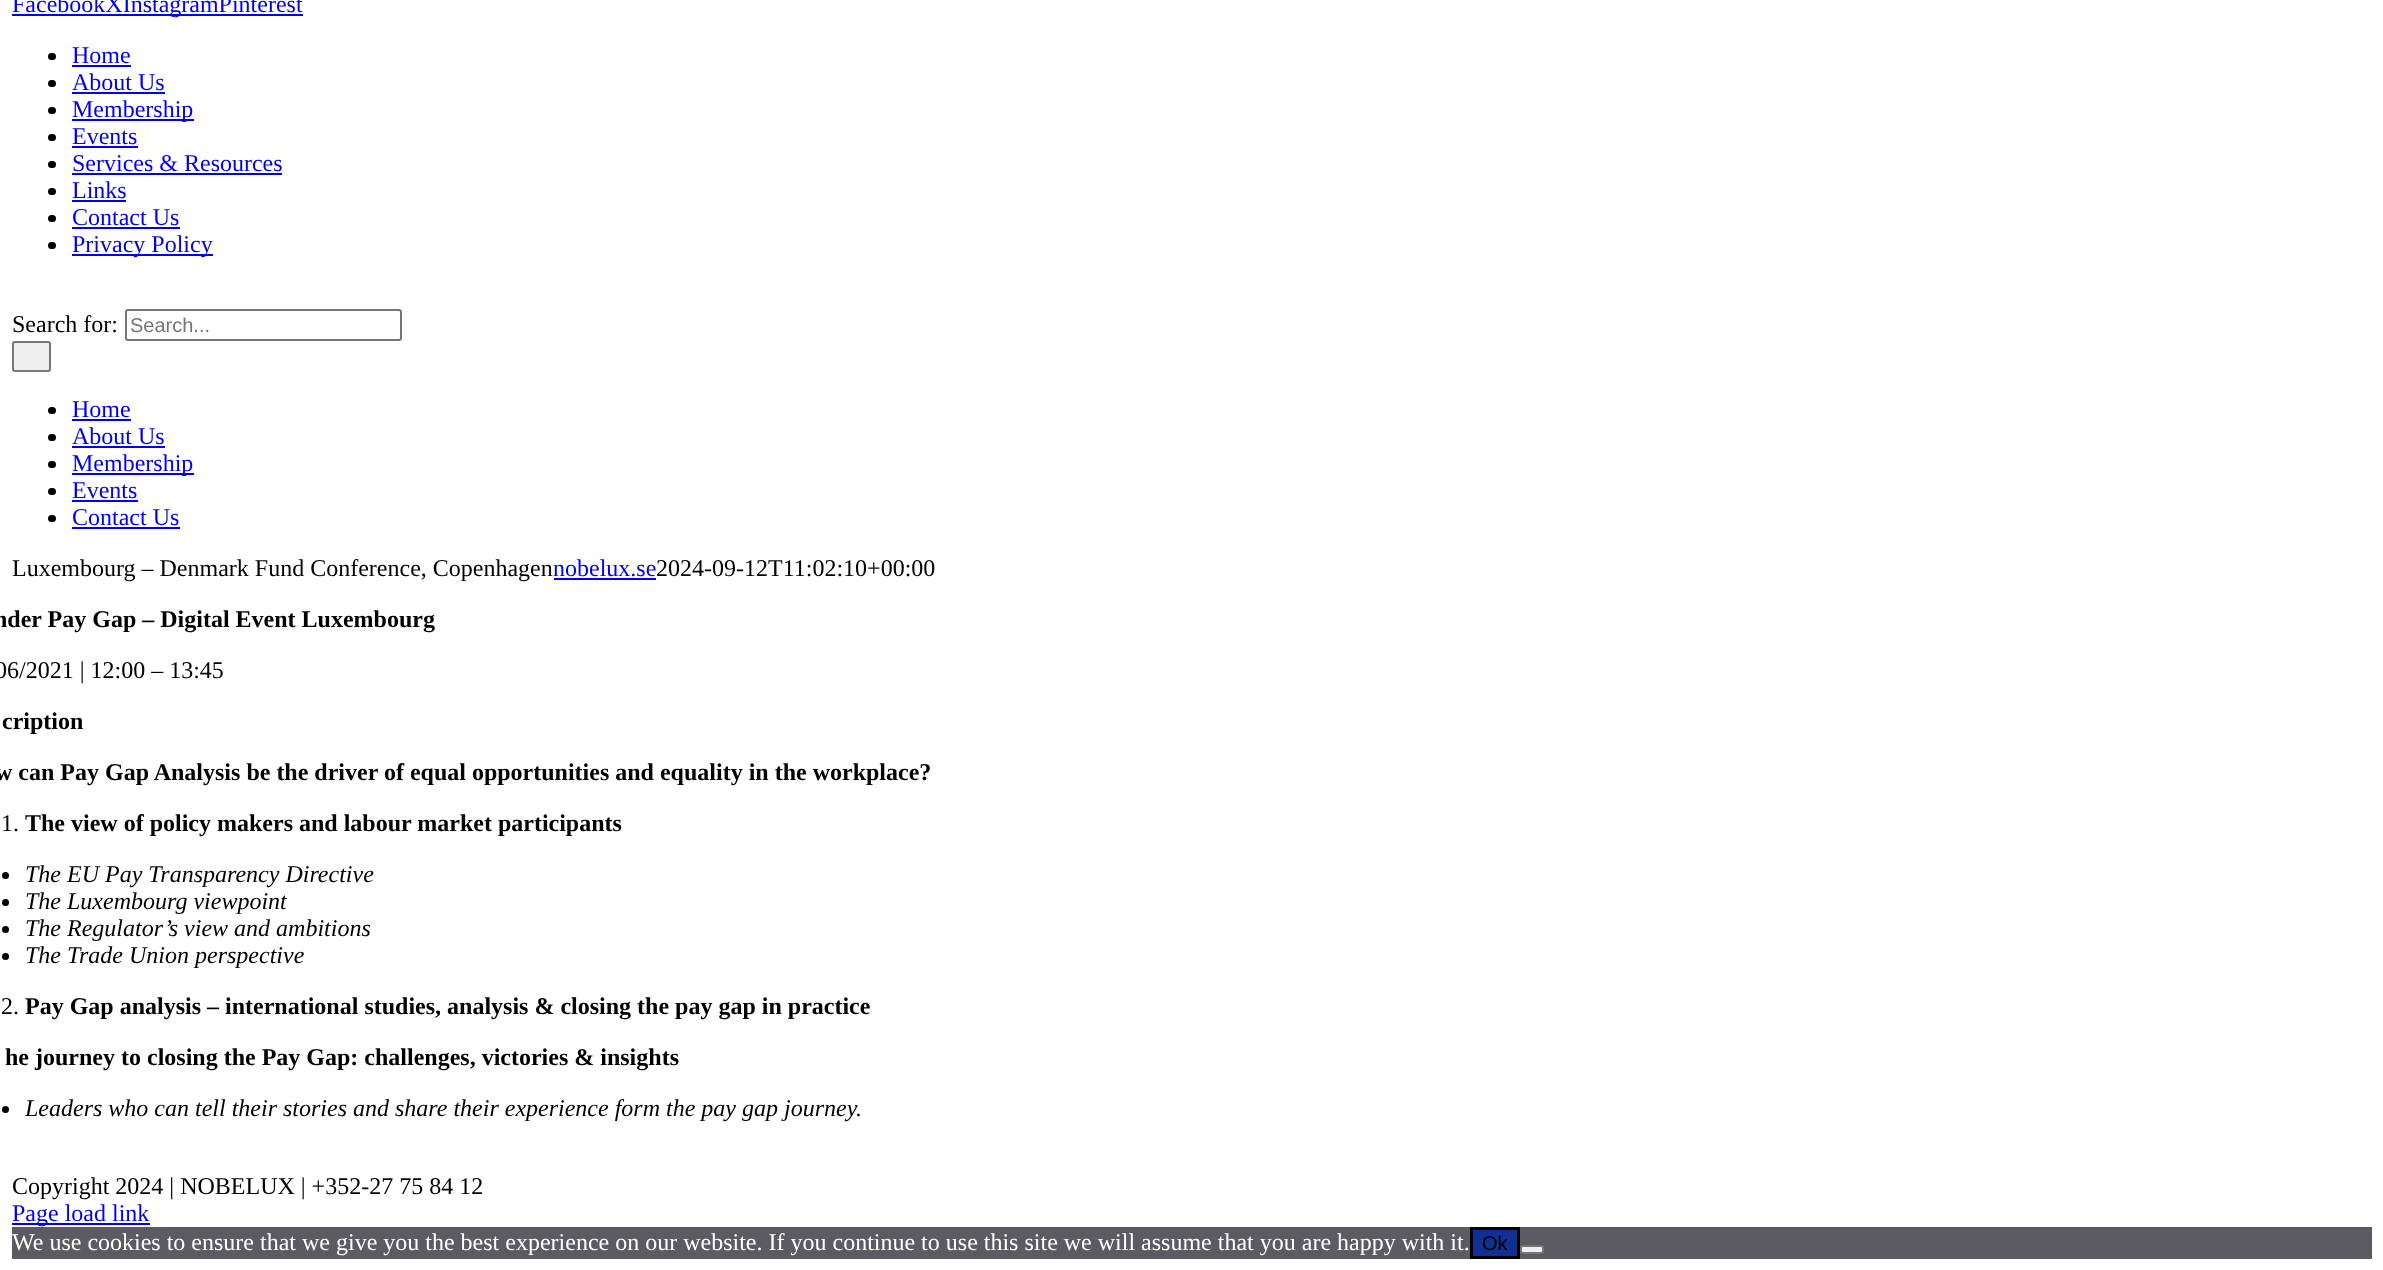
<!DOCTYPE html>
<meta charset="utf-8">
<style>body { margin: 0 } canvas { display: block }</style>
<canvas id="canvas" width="2383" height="1270"></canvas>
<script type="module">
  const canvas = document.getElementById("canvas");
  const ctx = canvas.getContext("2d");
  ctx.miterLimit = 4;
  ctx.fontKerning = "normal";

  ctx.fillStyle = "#ffffff";
  ctx.fillRect(0, 0, 2383, 1270);
  ctx.fillStyle = "#0000ee";
  ctx.fillRect(12, 14, 291, 2);
  ctx.font = "24px Liberation Serif";
  ctx.fillText("FacebookXInstagramPinterest", 12, 12);
  ctx.fillStyle = "#000000";
  ctx.beginPath();
  ctx.roundRect(48, 53, 8, 7, 3.5);
  ctx.fill();
  ctx.fillStyle = "#0000ee";
  ctx.fillText("Home", 72, 63);
  ctx.fillRect(72, 65, 59, 2);
  ctx.fillStyle = "#000000";
  ctx.beginPath();
  ctx.roundRect(48, 80, 8, 7, 3.5);
  ctx.fill();
  ctx.fillStyle = "#0000ee";
  ctx.fillText("About Us", 72, 90);
  ctx.fillRect(72, 92, 93, 2);
  ctx.fillStyle = "#000000";
  ctx.beginPath();
  ctx.roundRect(48, 107, 8, 7, 3.5);
  ctx.fill();
  ctx.fillStyle = "#0000ee";
  ctx.fillRect(72, 119, 122, 2);
  ctx.fillText("Membership", 72, 117);
  ctx.fillStyle = "#000000";
  ctx.beginPath();
  ctx.roundRect(48, 134, 8, 7, 3.5);
  ctx.fill();
  ctx.fillStyle = "#0000ee";
  ctx.fillText("Events", 72, 144);
  ctx.fillRect(72, 146, 66, 2);
  ctx.fillStyle = "#000000";
  ctx.beginPath();
  ctx.roundRect(48, 161, 8, 7, 3.5);
  ctx.fill();
  ctx.fillStyle = "#0000ee";
  ctx.fillText("Services & Resources", 72, 171);
  ctx.fillRect(72, 173, 210, 2);
  ctx.fillStyle = "#000000";
  ctx.beginPath();
  ctx.roundRect(48, 188, 8, 7, 3.5);
  ctx.fill();
  ctx.fillStyle = "#0000ee";
  ctx.fillText("Links", 72, 198);
  ctx.fillRect(72, 200, 54, 2);
  ctx.fillStyle = "#000000";
  ctx.beginPath();
  ctx.roundRect(48, 215, 8, 7, 3.5);
  ctx.fill();
  ctx.fillStyle = "#0000ee";
  ctx.fillText("Contact Us", 72, 225);
  ctx.fillRect(72, 227, 108, 2);
  ctx.fillStyle = "#000000";
  ctx.beginPath();
  ctx.roundRect(48, 242, 8, 7, 3.5);
  ctx.fill();
  ctx.fillStyle = "#0000ee";
  ctx.fillRect(72, 254, 141, 2);
  ctx.fillText("Privacy Policy", 72, 252);
  ctx.fillStyle = "#000000";
  ctx.fillText("Search for:", 12, 332);
  ctx.beginPath();
  ctx.roundRect(126, 310, 275, 30, 2);
  ctx.strokeStyle = "#767676";
  ctx.lineWidth = 2;
  ctx.stroke();
  ctx.font = "20px Liberation Sans";
  ctx.fillStyle = "#757575";
  ctx.fillText("Search...", 130, 332);
  ctx.fillStyle = "#efefef";
  ctx.beginPath();
  ctx.roundRect(13, 342, 37, 29, 2);
  ctx.fill();
  ctx.stroke();
  ctx.fillStyle = "#000000";
  ctx.beginPath();
  ctx.roundRect(48, 407, 8, 7, 3.5);
  ctx.fill();
  ctx.font = "24px Liberation Serif";
  ctx.fillStyle = "#0000ee";
  ctx.fillText("Home", 72, 417);
  ctx.fillRect(72, 419, 59, 2);
  ctx.fillStyle = "#000000";
  ctx.beginPath();
  ctx.roundRect(48, 434, 8, 7, 3.5);
  ctx.fill();
  ctx.fillStyle = "#0000ee";
  ctx.fillText("About Us", 72, 444);
  ctx.fillRect(72, 446, 93, 2);
  ctx.fillStyle = "#000000";
  ctx.beginPath();
  ctx.roundRect(48, 461, 8, 7, 3.5);
  ctx.fill();
  ctx.fillStyle = "#0000ee";
  ctx.fillRect(72, 473, 122, 2);
  ctx.fillText("Membership", 72, 471);
  ctx.fillStyle = "#000000";
  ctx.beginPath();
  ctx.roundRect(48, 488, 8, 7, 3.5);
  ctx.fill();
  ctx.fillStyle = "#0000ee";
  ctx.fillText("Events", 72, 498);
  ctx.fillRect(72, 500, 66, 2);
  ctx.fillStyle = "#000000";
  ctx.beginPath();
  ctx.roundRect(48, 515, 8, 7, 3.5);
  ctx.fill();
  ctx.fillStyle = "#0000ee";
  ctx.fillText("Contact Us", 72, 525);
  ctx.fillRect(72, 527, 108, 2);
  ctx.fillStyle = "#000000";
  ctx.fillText("Luxembourg – Denmark Fund Conference, Copenhagen", 12, 576);
  ctx.fillStyle = "#0000ee";
  ctx.fillText("nobelux.se", 553, 576);
  ctx.fillRect(554, 578, 102, 2);
  ctx.fillStyle = "#000000";
  ctx.fillText("2024-09-12T11:02:10+00:00", 656, 576);
  ctx.font = "bold 24px Liberation Serif";
  ctx.fillText("nder Pay Gap – Digital Event Luxembourg", -6, 627);
  ctx.font = "24px Liberation Serif";
  ctx.fillText("06/2021 | 12:00 – 13:45", -5, 678);
  ctx.font = "bold 24px Liberation Serif";
  ctx.fillText("cription", 2, 729);
  ctx.fillText("w can Pay Gap Analysis be the driver of equal opportunities and equality in the workplace?", -5, 780);
  ctx.font = "24px Liberation Serif";
  ctx.fillText("1.", 1, 831);
  ctx.font = "bold 24px Liberation Serif";
  ctx.fillText("The view of policy makers and labour market participants", 25, 831);
  ctx.beginPath();
  ctx.arc(5.5, 875.5, 3.5, 0, Math.PI * 2);
  ctx.fill();
  ctx.font = "italic 24px Liberation Serif";
  ctx.fillText("The EU Pay Transparency Directive", 25, 882);
  ctx.beginPath();
  ctx.arc(5.5, 902.5, 3.5, 0, Math.PI * 2);
  ctx.fill();
  ctx.fillText("The Luxembourg viewpoint", 25, 909);
  ctx.beginPath();
  ctx.arc(5.5, 929.5, 3.5, 0, Math.PI * 2);
  ctx.fill();
  ctx.fillText("The Regulator’s view and ambitions", 25, 936);
  ctx.beginPath();
  ctx.arc(5.5, 956.5, 3.5, 0, Math.PI * 2);
  ctx.fill();
  ctx.fillText("The Trade Union perspective", 25, 963);
  ctx.font = "24px Liberation Serif";
  ctx.fillText("2.", 1, 1014);
  ctx.font = "bold 24px Liberation Serif";
  ctx.fillText("Pay Gap analysis – international studies, analysis & closing the pay gap in practice", 25, 1014);
  ctx.fillText("he journey to closing the Pay Gap: challenges, victories & insights", 5, 1065);
  ctx.beginPath();
  ctx.arc(5.5, 1109.5, 3.5, 0, Math.PI * 2);
  ctx.fill();
  ctx.font = "italic 24px Liberation Serif";
  ctx.fillText("Leaders who can tell their stories and share their experience form the pay gap journey.", 25, 1116);
  ctx.font = "24px Liberation Serif";
  ctx.fillText("Copyright 2024 | NOBELUX | +352-27 75 84 12", 12, 1194);
  ctx.fillStyle = "#0000ee";
  ctx.fillRect(12, 1223, 138, 2);
  ctx.fillText("Page load link", 12, 1221);
  ctx.fillStyle = "#5b5b61";
  ctx.fillRect(12, 1227, 2360, 32);
  ctx.fillStyle = "#ffffff";
  ctx.fillText("We use cookies to ensure that we give you the best experience on our website. If you continue to use this site we will assume that you are happy with it.", 12, 1250);
  ctx.fillStyle = "#113093";
  ctx.beginPath();
  ctx.rect(1471.5, 1228.5, 47, 29);
  ctx.fill();
  ctx.strokeStyle = "#000000";
  ctx.lineWidth = 3;
  ctx.stroke();
  ctx.font = "20px Liberation Sans";
  ctx.fillStyle = "#000000";
  ctx.fillText("Ok", 1482, 1250);
  ctx.fillStyle = "#efefef";
  ctx.beginPath();
  ctx.roundRect(1521, 1246, 22, 7, 2);
  ctx.fill();
  ctx.strokeStyle = "#767676";
  ctx.lineWidth = 2;
  ctx.stroke();
</script>
